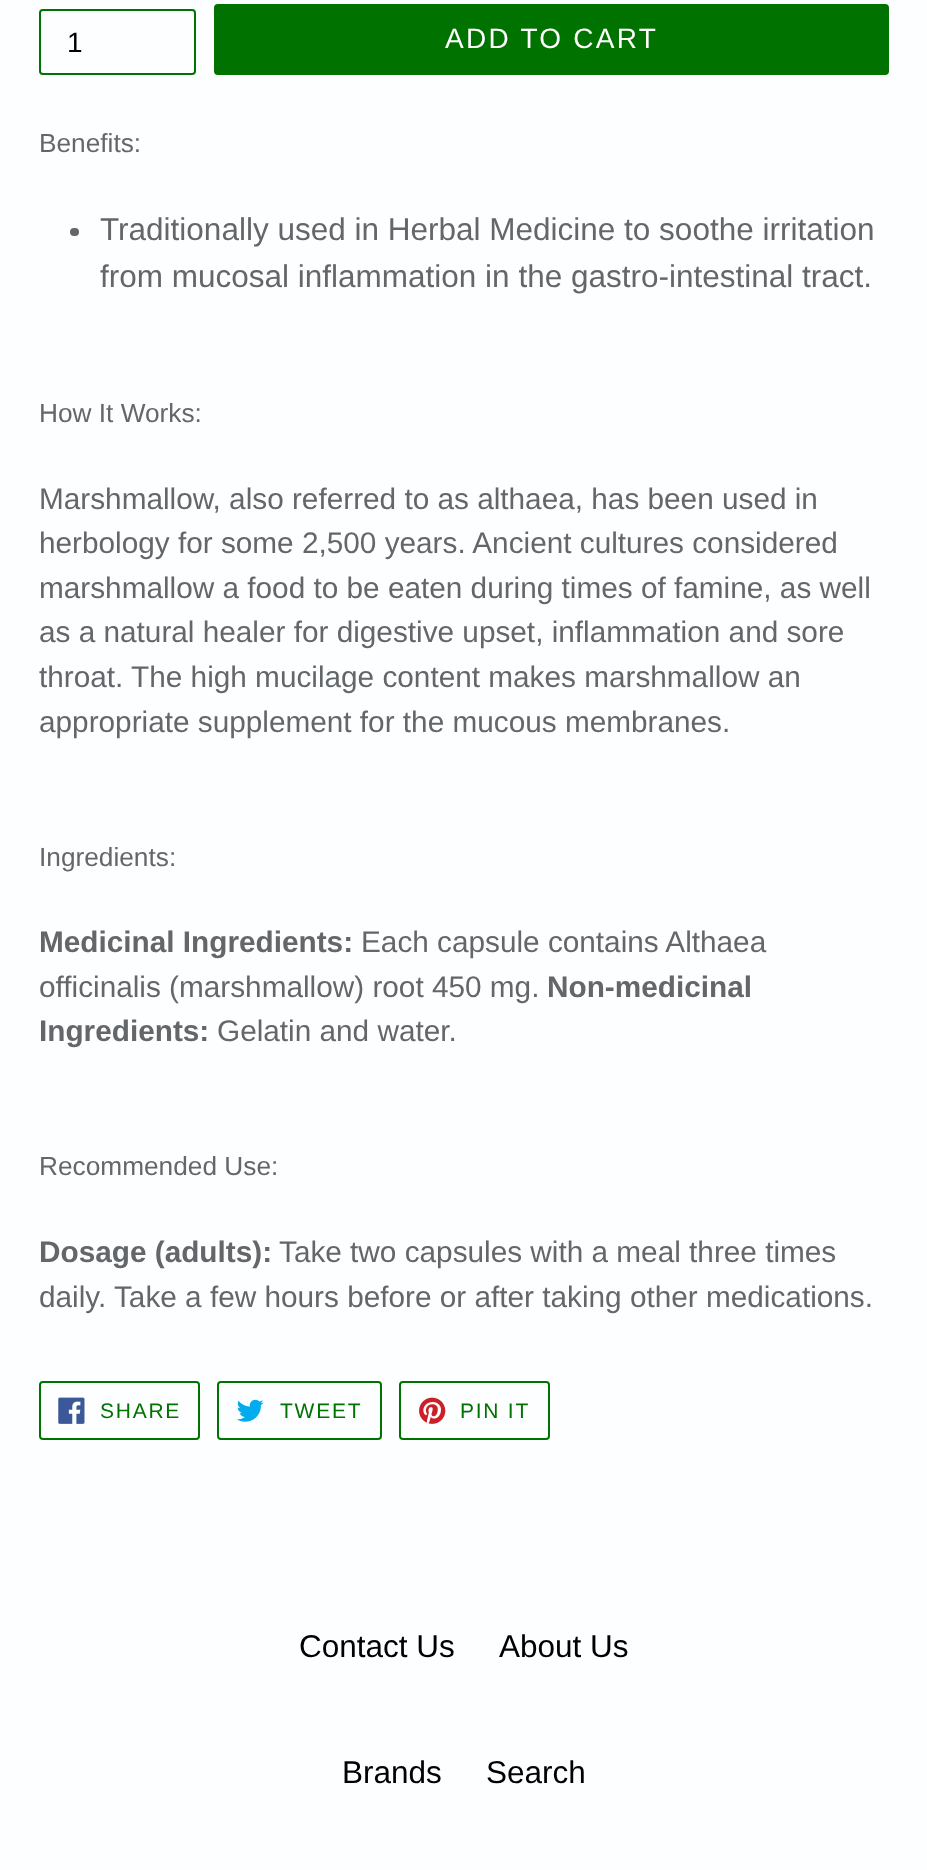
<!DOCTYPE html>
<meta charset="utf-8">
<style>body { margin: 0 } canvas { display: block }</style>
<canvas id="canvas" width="927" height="1870"></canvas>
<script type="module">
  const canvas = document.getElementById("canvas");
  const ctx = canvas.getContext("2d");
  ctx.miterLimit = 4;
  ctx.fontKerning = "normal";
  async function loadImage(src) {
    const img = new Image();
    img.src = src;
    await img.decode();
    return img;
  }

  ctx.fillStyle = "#fdfeff";
  ctx.fillRect(0, 0, 927, 1870);
  ctx.beginPath();
  ctx.roundRect(40, 10, 155, 64, 3);
  ctx.strokeStyle = "#007200";
  ctx.lineWidth = 2;
  ctx.stroke();
  ctx.font = "28px Liberation Sans";
  ctx.fillStyle = "#000000";
  ctx.fillText("1", 67, 52);
  ctx.fillStyle = "#007200";
  ctx.beginPath();
  ctx.roundRect(214, 4, 675, 71, 4);
  ctx.fill();
  ctx.letterSpacing = "2.25px";
  ctx.fillStyle = "#ffffff";
  ctx.fillText("ADD TO CART", 445, 48);
  ctx.letterSpacing = "0px";
  ctx.font = "26.25px Liberation Sans";
  ctx.fillStyle = "#64676a";
  ctx.fillText("Benefits:", 39, 152);
  ctx.beginPath();
  ctx.roundRect(70, 228, 9, 8, 4);
  ctx.fill();
  ctx.font = "31.5px Liberation Sans";
  ctx.fillText("Traditionally used in Herbal Medicine to soothe irritation", 100, 240);
  ctx.fillText("from mucosal inflammation in the gastro-intestinal tract.", 100, 287);
  ctx.font = "26.25px Liberation Sans";
  ctx.fillText("How It Works:", 39, 422);
  ctx.font = "29.75px Liberation Sans";
  ctx.fillText("Marshmallow, also referred to as althaea, has been used in", 39, 509);
  ctx.fillText("herbology for some 2,500 years. Ancient cultures considered", 39, 553);
  ctx.fillText("marshmallow a food to be eaten during times of famine, as well", 39, 598);
  ctx.fillText("as a natural healer for digestive upset, inflammation and sore", 39, 642);
  ctx.fillText("throat. The high mucilage content makes marshmallow an", 39, 687);
  ctx.fillText("appropriate supplement for the mucous membranes.", 39, 732);
  ctx.font = "26.25px Liberation Sans";
  ctx.fillText("Ingredients:", 39, 866);
  ctx.font = "bold 29.75px Liberation Sans";
  ctx.fillText("Medicinal Ingredients:", 39, 952);
  ctx.font = "29.75px Liberation Sans";
  ctx.fillText("Each capsule contains Althaea", 361, 952);
  ctx.fillText("officinalis (marshmallow) root 450 mg.", 39, 997);
  ctx.font = "bold 29.75px Liberation Sans";
  ctx.fillText("Non-medicinal", 547, 997);
  ctx.fillText("Ingredients:", 39, 1041);
  ctx.font = "29.75px Liberation Sans";
  ctx.fillText("Gelatin and water.", 217, 1041);
  ctx.font = "26.25px Liberation Sans";
  ctx.fillText("Recommended Use:", 39, 1175);
  ctx.font = "bold 29.75px Liberation Sans";
  ctx.fillText("Dosage (adults):", 39, 1262);
  ctx.font = "29.75px Liberation Sans";
  ctx.fillText("Take two capsules with a meal three times", 279, 1262);
  ctx.fillText("daily. Take a few hours before or after taking other medications.", 39, 1307);
  ctx.beginPath();
  ctx.roundRect(40, 1382, 159, 57, 3);
  ctx.stroke();
  ctx.drawImage(await loadImage("img1.png"), 58, 1397, 27, 27);
  ctx.letterSpacing = "1.75px";
  ctx.font = "21px Liberation Sans";
  ctx.fillStyle = "#007200";
  ctx.fillText("SHARE", 100, 1418);
  ctx.beginPath();
  ctx.roundRect(218, 1382, 163, 57, 3);
  ctx.stroke();
  ctx.drawImage(await loadImage("img2.png"), 236, 1399, 28, 23);
  ctx.fillText("TWEET", 280, 1418);
  ctx.beginPath();
  ctx.roundRect(400, 1382, 149, 57, 3);
  ctx.stroke();
  ctx.drawImage(await loadImage("img3.png"), 419, 1397, 27, 27);
  ctx.fillText("PIN IT", 460, 1418);
  ctx.letterSpacing = "0px";
  ctx.font = "31.5px Liberation Sans";
  ctx.fillStyle = "#000000";
  ctx.fillText("Contact Us", 299, 1657);
  ctx.fillText("About Us", 499, 1657);
  ctx.fillText("Brands", 342, 1783);
  ctx.fillText("Search", 486, 1783);
</script>
